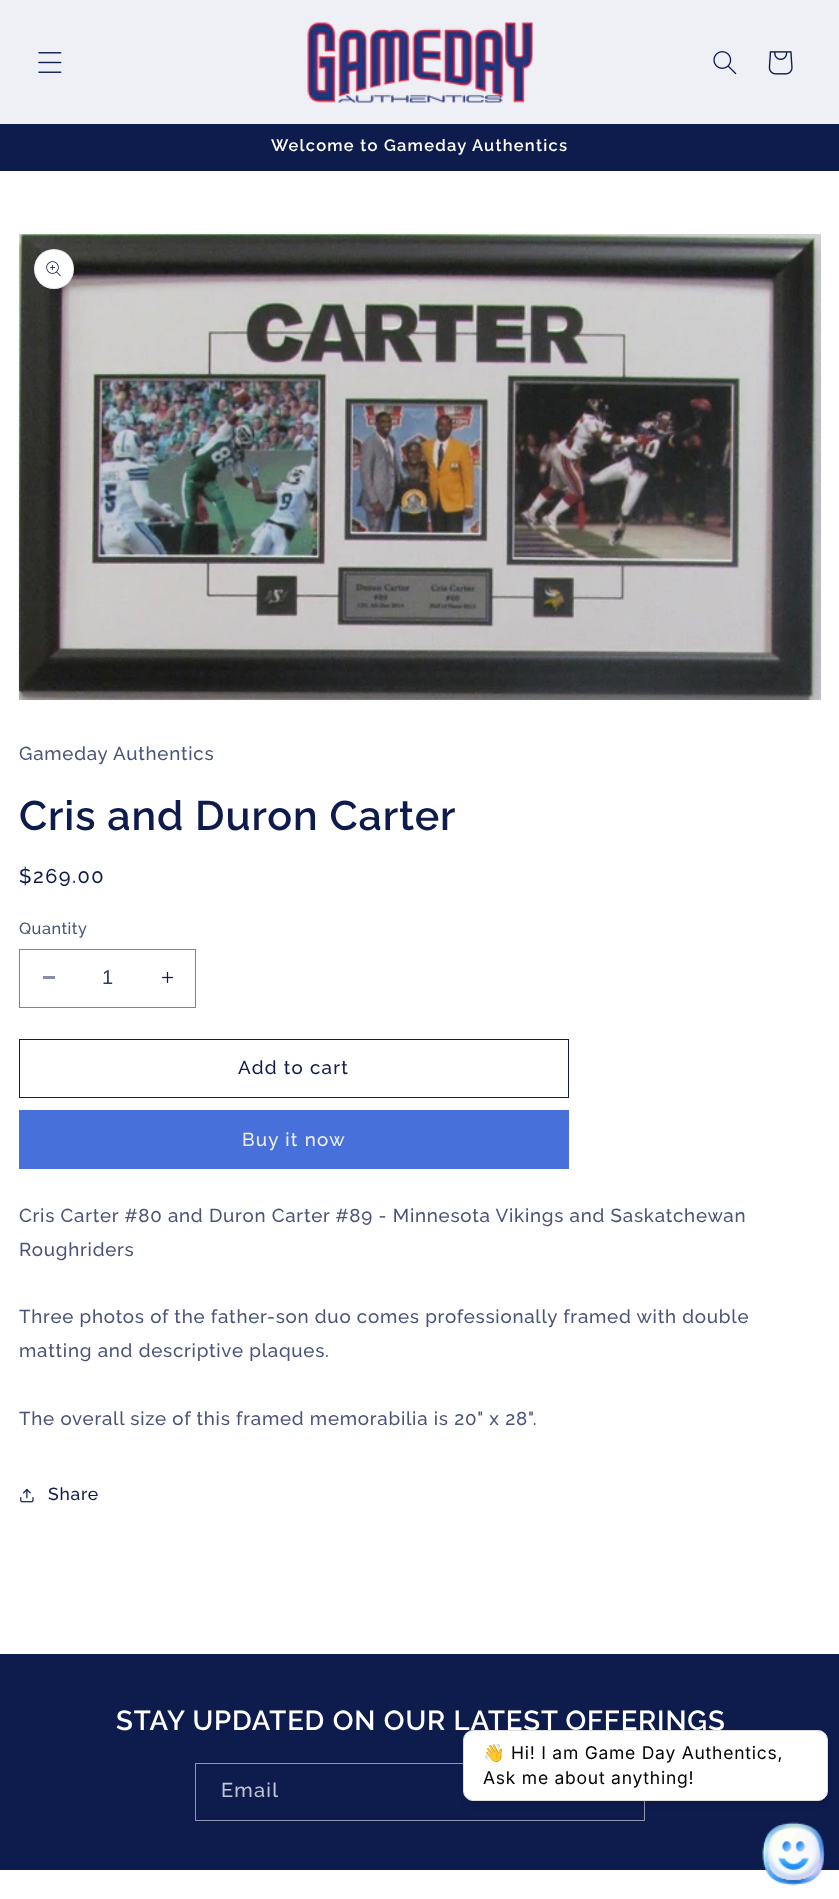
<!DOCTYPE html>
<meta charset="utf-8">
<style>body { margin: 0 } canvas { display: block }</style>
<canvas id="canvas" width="839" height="1899"></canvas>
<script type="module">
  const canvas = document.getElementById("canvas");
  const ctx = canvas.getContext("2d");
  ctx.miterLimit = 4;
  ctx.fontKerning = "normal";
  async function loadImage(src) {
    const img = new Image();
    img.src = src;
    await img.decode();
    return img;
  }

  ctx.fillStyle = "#ffffff";
  ctx.fillRect(0, 0, 839, 1899);
  ctx.fillStyle = "#eff0f5";
  ctx.fillRect(0, 0, 839, 124);
  ctx.drawImage(await loadImage("img1.png"), 38, 52, 24, 21);
  ctx.drawImage(await loadImage("img2.png"), 307, 22, 226, 81);
  ctx.drawImage(await loadImage("img3.png"), 713, 51, 24, 24);
  ctx.drawImage(await loadImage("img4.png"), 768, 51, 25, 24);
  ctx.fillStyle = "#0e1b4d";
  ctx.fillRect(0, 124, 839, 47);
  ctx.letterSpacing = "1.25px";
  ctx.font = "600 16.5px Raleway";
  ctx.fillStyle = "#ffffff";
  ctx.fillText("Welcome to Gameday Authentics", 271, 151);
  ctx.drawImage(await loadImage("img5.png"), 18, 233, 804, 467);
  ctx.beginPath();
  ctx.arc(54, 269, 20, 0, Math.PI * 2);
  ctx.fill();
  ctx.beginPath();
  ctx.arc(54, 269, 19.5, 0, Math.PI * 2);
  ctx.strokeStyle = "rgba(14, 27, 77, 0.1)";
  ctx.stroke();
  ctx.drawImage(await loadImage("img6.png"), 46, 261, 15, 16);
  ctx.letterSpacing = "0.75px";
  ctx.font = "500 18.75px Raleway";
  ctx.fillStyle = "#4a547a";
  ctx.fillText("Gameday Authentics", 19, 760);
  ctx.letterSpacing = "0.85px";
  ctx.font = "600 41.25px Raleway";
  ctx.fillStyle = "#0e1b4d";
  ctx.fillText("Cris and Duron Carter", 19, 830);
  ctx.letterSpacing = "1.5px";
  ctx.font = "500 20px Raleway";
  ctx.fillText("$269.00", 19, 883);
  ctx.letterSpacing = "0.5px";
  ctx.font = "500 16.25px Raleway";
  ctx.fillStyle = "#4a547a";
  ctx.fillText("Quantity", 19, 934);
  ctx.fillStyle = "#878da6";
  ctx.fillRect(43, 976, 12, 3);
  ctx.drawImage(await loadImage("img7.png"), 161, 971, 13, 13);
  ctx.strokeStyle = "#7a829d";
  ctx.strokeRect(19.5, 949.5, 176, 58);
  ctx.letterSpacing = "0px";
  ctx.font = "20px Liberation Sans";
  ctx.fillStyle = "#323d68";
  ctx.fillText("1", 102, 984);
  ctx.strokeStyle = "#0e1b4d";
  ctx.strokeRect(19.5, 1039.5, 549, 58);
  ctx.letterSpacing = "1.25px";
  ctx.font = "500 18.75px Raleway";
  ctx.fillStyle = "#0e1b4d";
  ctx.fillText("Add to cart", 238, 1074);
  ctx.fillStyle = "#4770db";
  ctx.fillRect(19, 1110, 550, 59);
  ctx.fillStyle = "#eff0f5";
  ctx.fillText("Buy it now", 242, 1146);
  ctx.letterSpacing = "0.75px";
  ctx.fillStyle = "#4a547a";
  ctx.fillText("Cris Carter #80 and Duron Carter #89 - Minnesota Vikings and Saskatchewan", 19, 1222);
  ctx.fillText("Roughriders", 19, 1256);
  ctx.fillText("Three photos of the father-son duo comes professionally framed with double", 19, 1323);
  ctx.fillText("matting and descriptive plaques.", 19, 1357);
  ctx.fillText("The overall size of this framed memorabilia is 20\" x 28\".", 19, 1425);
  ctx.drawImage(await loadImage("img8.png"), 20, 1488, 14, 15);
  ctx.font = "500 17.5px Raleway";
  ctx.fillStyle = "#0e1b4d";
  ctx.fillText("Share", 48, 1500);
  ctx.fillRect(0, 1654, 839, 216);
  ctx.letterSpacing = "0.85px";
  ctx.font = "600 27.5px Raleway";
  ctx.fillStyle = "#ffffff";
  ctx.fillText("STAY UPDATED ON OUR LATEST OFFERINGS", 116, 1730);
  ctx.strokeStyle = "#9398af";
  ctx.strokeRect(195.5, 1763.5, 449, 57);
  ctx.letterSpacing = "1.25px";
  ctx.font = "500 20px Raleway";
  ctx.fillStyle = "#c3c6d3";
  ctx.fillText("Email", 221, 1797);
  ctx.fillStyle = "rgba(0, 0, 0, 0.08)";
  ctx.filter = "blur(2.5px)";
  ctx.beginPath();
  ctx.roundRect(463, 1735, 365, 71, 10);
  ctx.fill();
  ctx.filter = "none";
  ctx.fillStyle = "#ffffff";
  ctx.beginPath();
  ctx.roundRect(463.5, 1730.5, 364, 70, 9.5);
  ctx.fill();
  ctx.strokeStyle = "#dddddd";
  ctx.stroke();
  ctx.letterSpacing = "0.75px";
  ctx.font = "17.5px Noto Color Emoji";
  ctx.fillStyle = "#000000";
  ctx.fillText("👋", 483, 1759);
  ctx.font = "17.5px Inter";
  ctx.fillText("Hi! I am Game Day Authentics,", 511, 1759);
  ctx.fillText("Ask me about anything!", 483, 1784);
  ctx.drawImage(await loadImage("img9.png"), 762, 1822, 63, 64);
</script>
